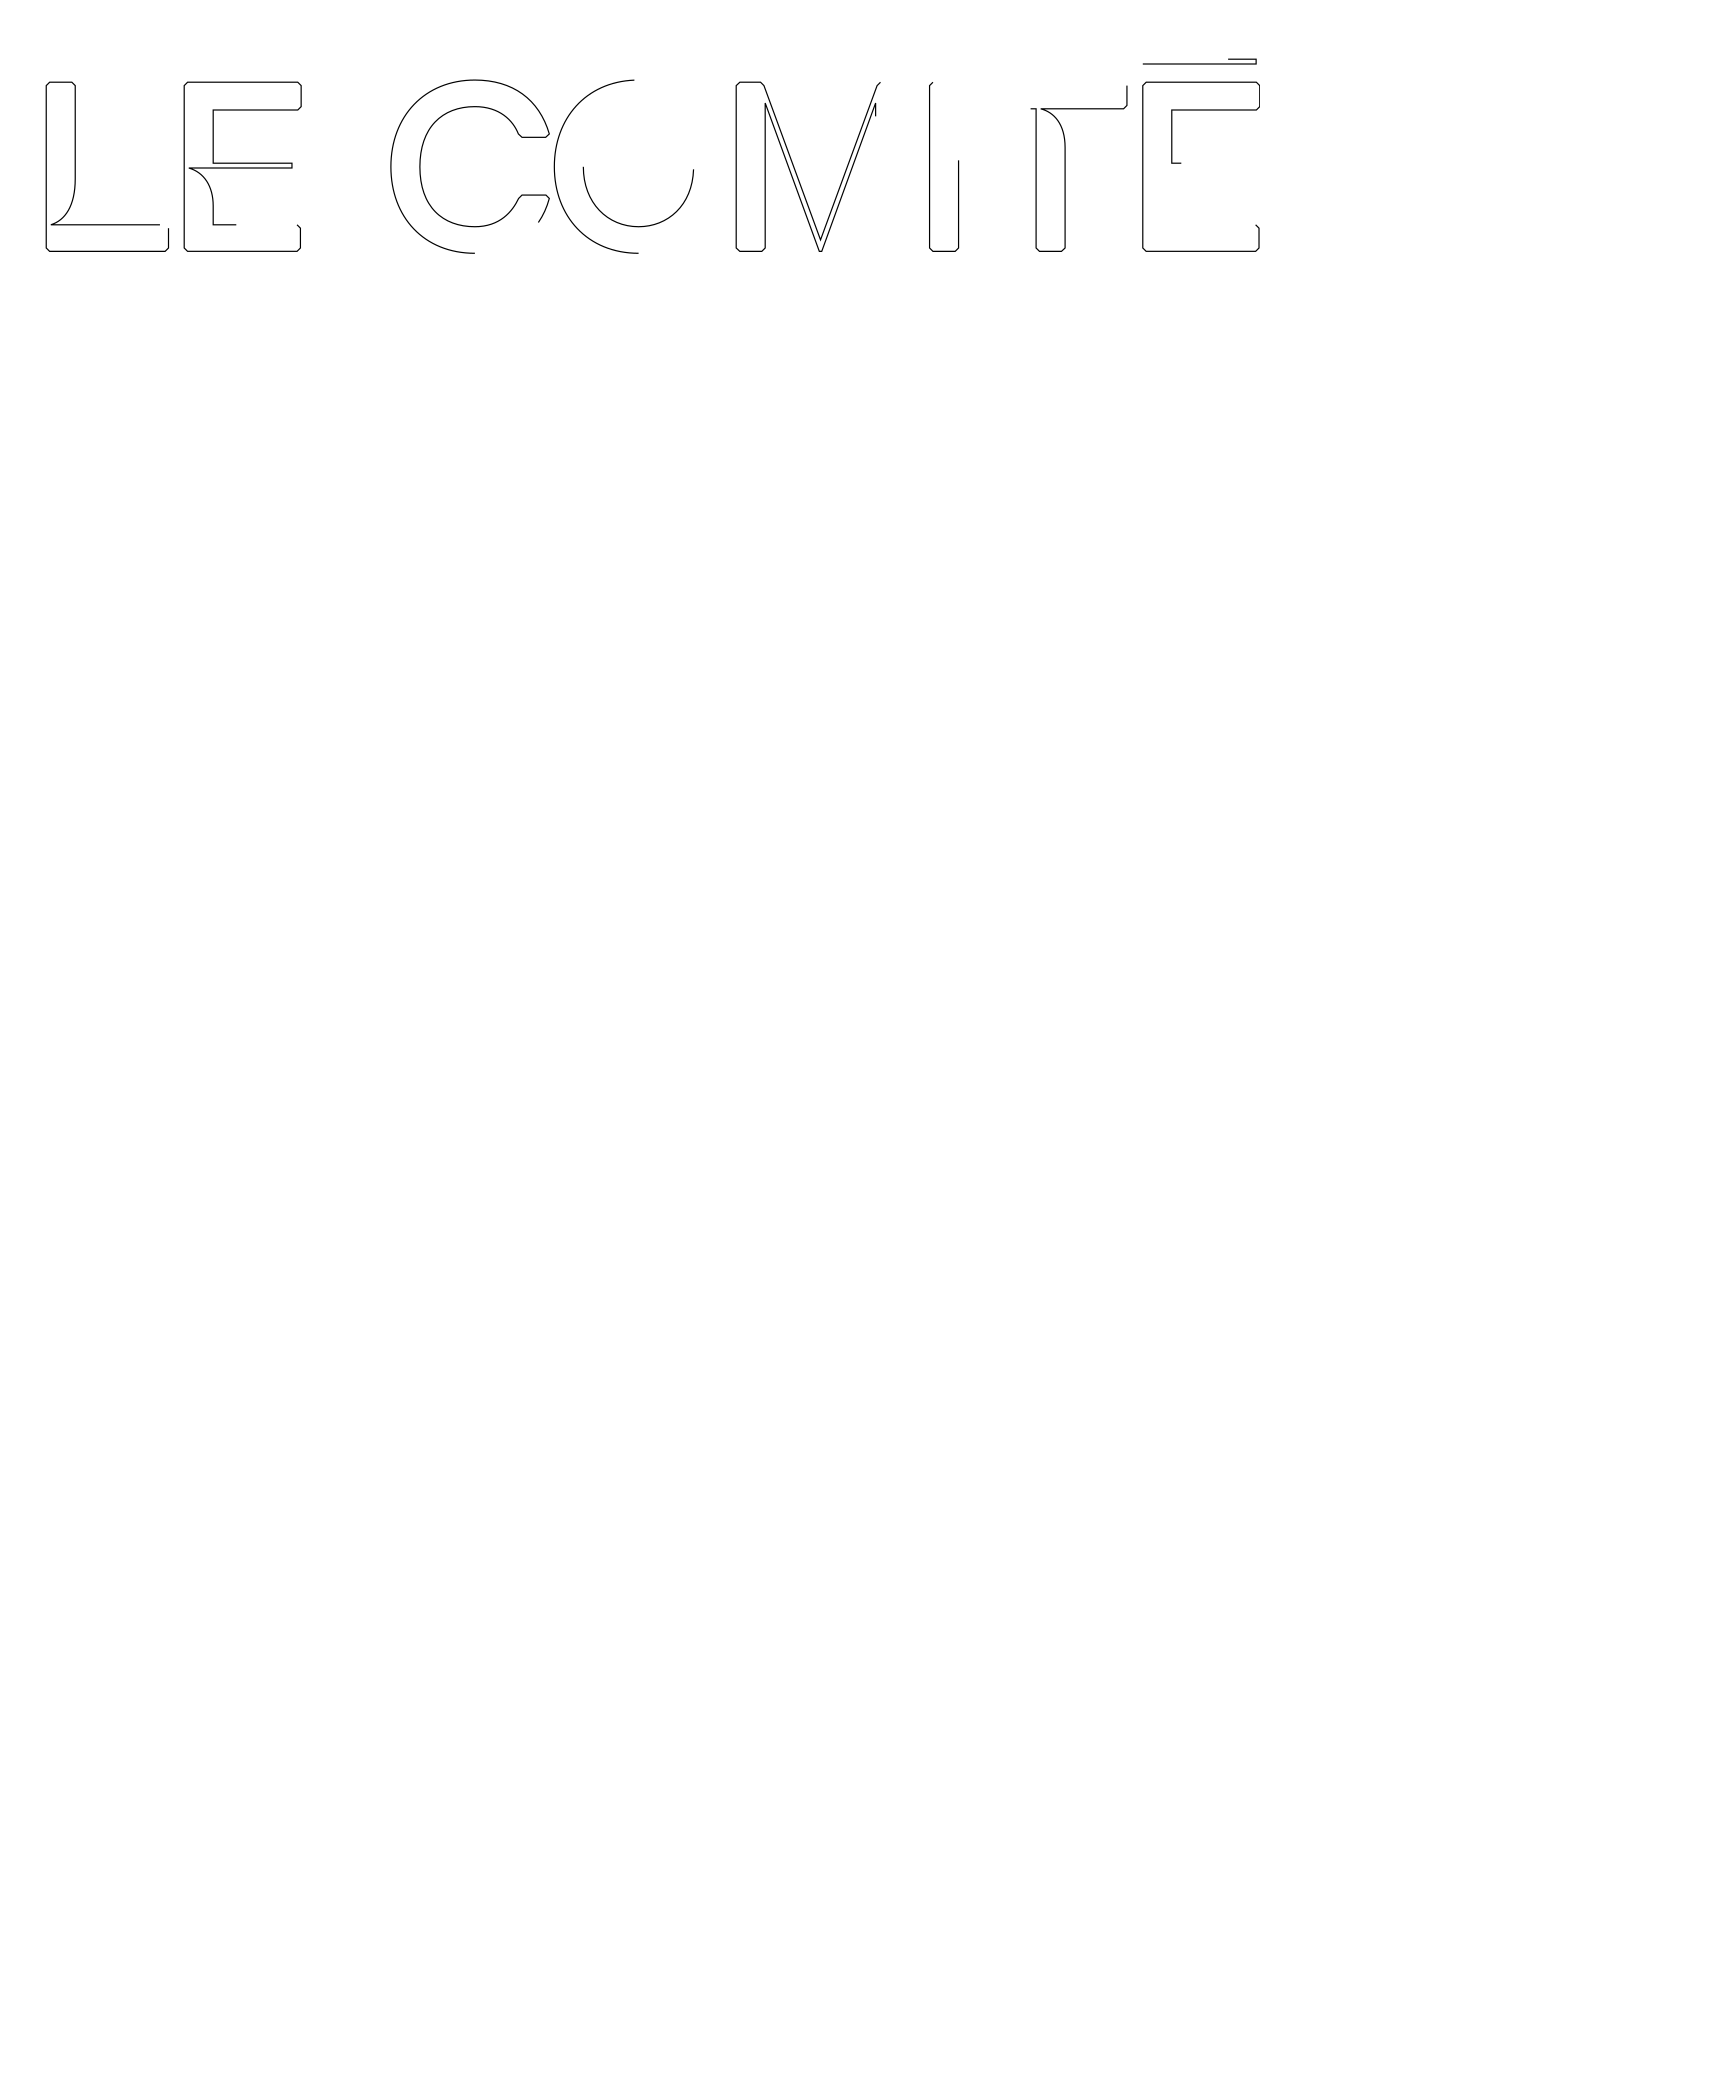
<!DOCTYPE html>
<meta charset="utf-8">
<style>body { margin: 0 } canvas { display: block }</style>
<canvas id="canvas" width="1735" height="2074"></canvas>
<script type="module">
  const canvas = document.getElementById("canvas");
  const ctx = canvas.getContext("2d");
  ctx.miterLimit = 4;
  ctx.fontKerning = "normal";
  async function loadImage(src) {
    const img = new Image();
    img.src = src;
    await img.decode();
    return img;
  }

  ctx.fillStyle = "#ffffff";
  ctx.fillRect(0, 0, 1735, 2074);
  ctx.drawImage(await loadImage("img1.png"), 45, 58, 1215, 196);
</script>
